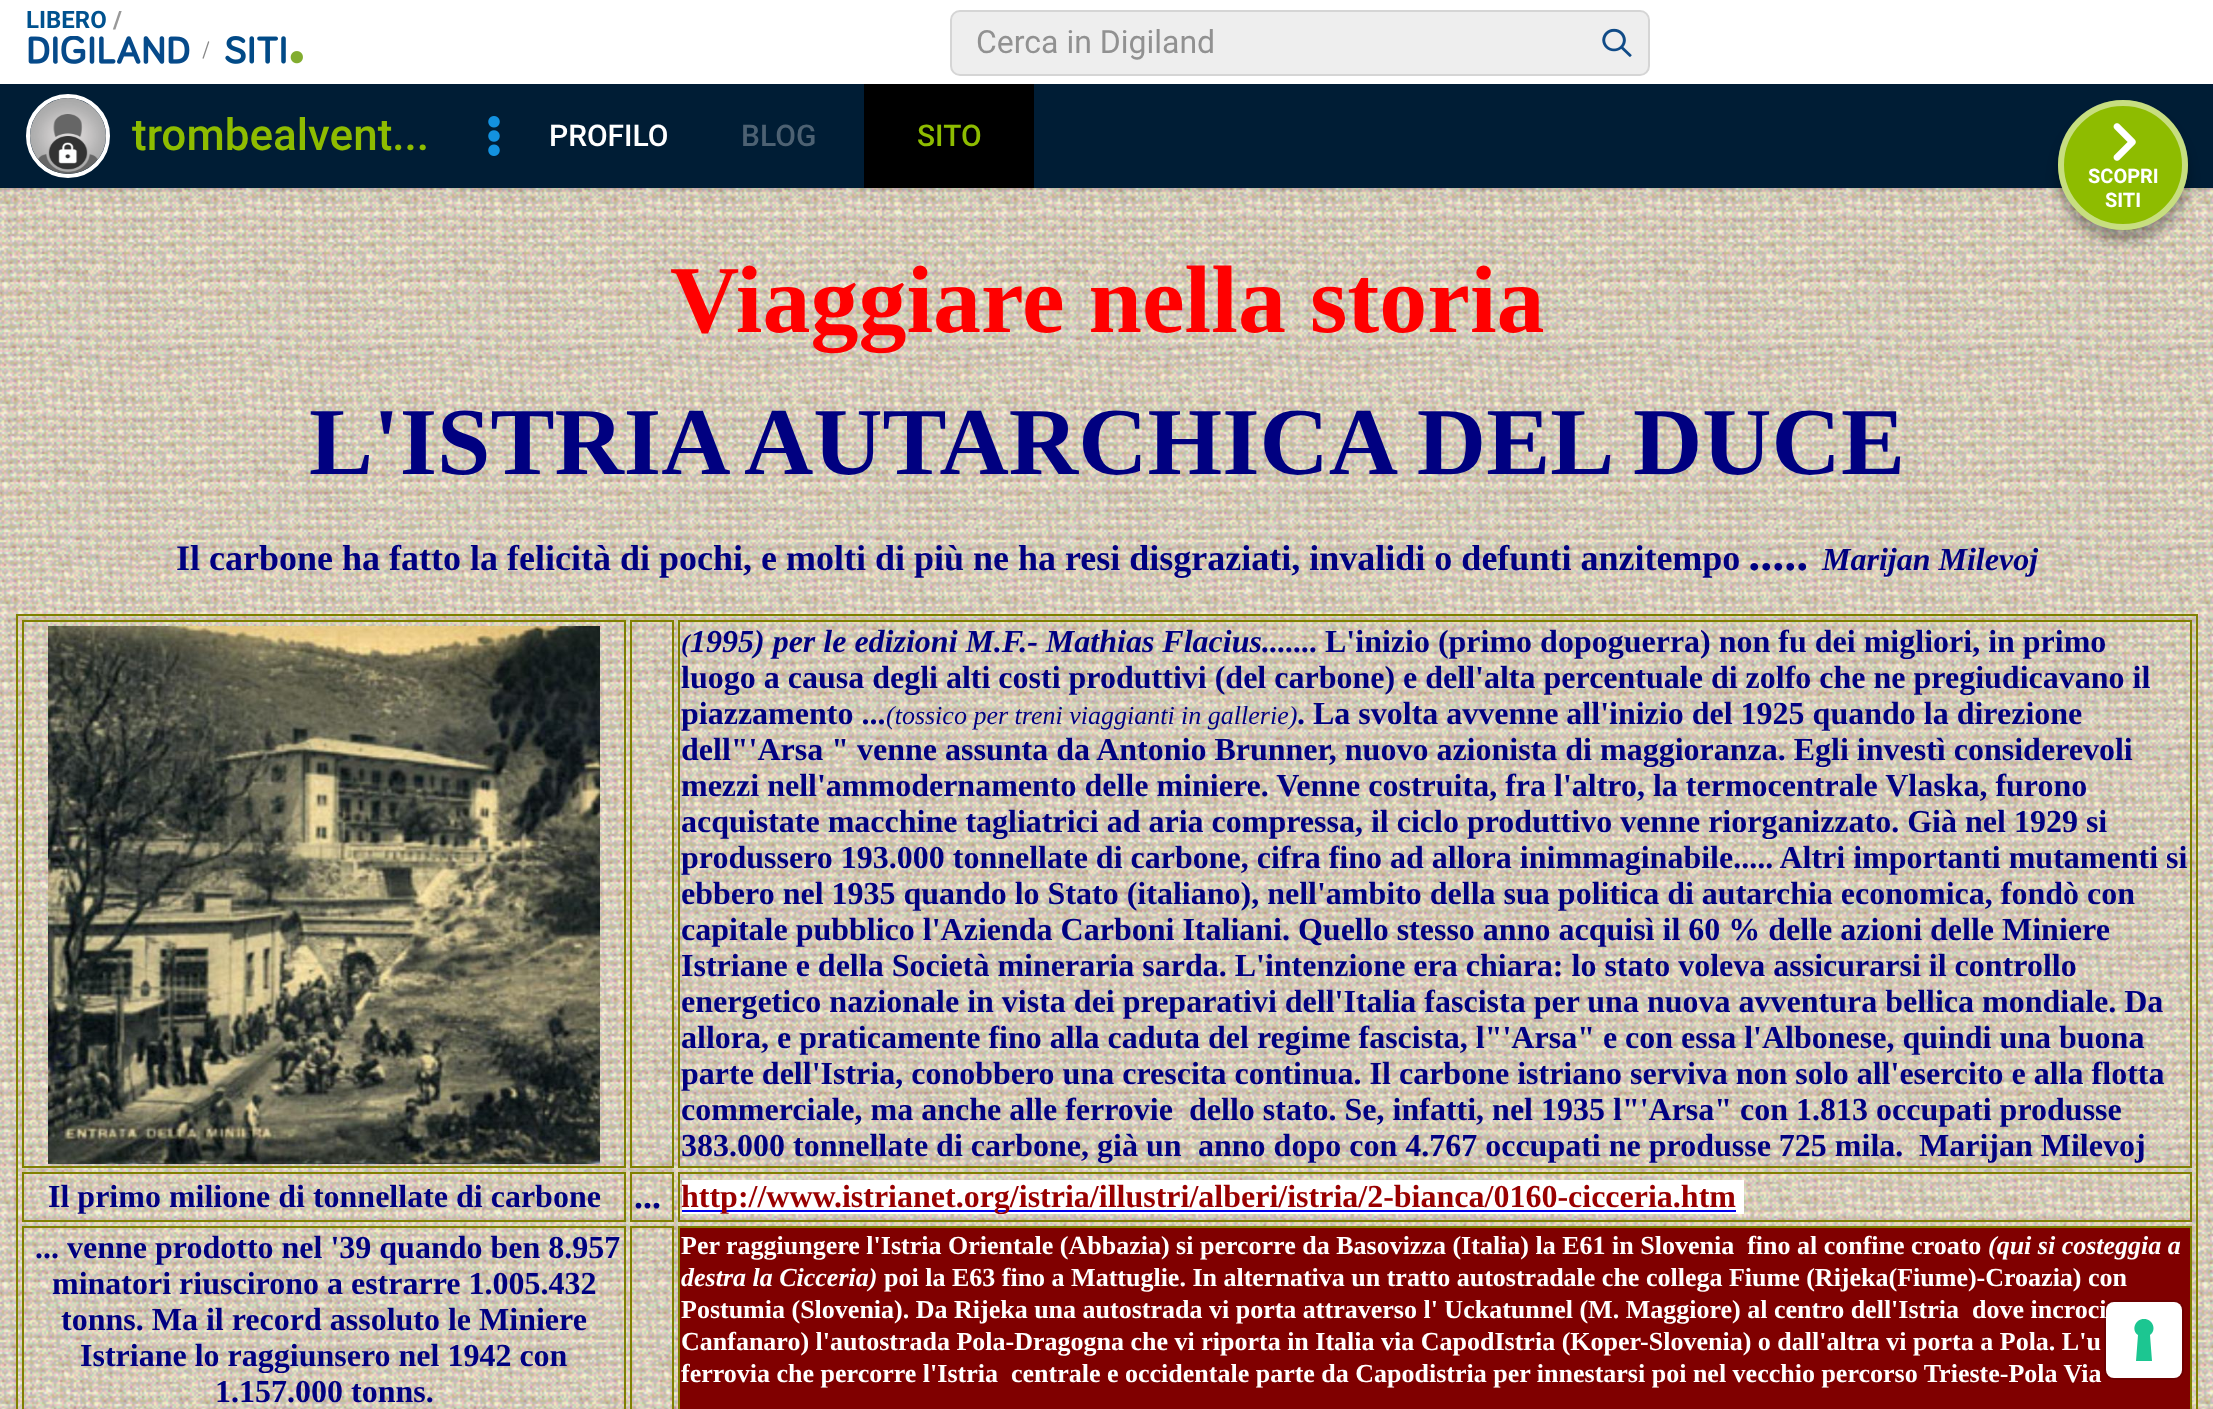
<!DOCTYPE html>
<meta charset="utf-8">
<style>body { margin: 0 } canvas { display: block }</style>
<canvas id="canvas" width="2213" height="1409"></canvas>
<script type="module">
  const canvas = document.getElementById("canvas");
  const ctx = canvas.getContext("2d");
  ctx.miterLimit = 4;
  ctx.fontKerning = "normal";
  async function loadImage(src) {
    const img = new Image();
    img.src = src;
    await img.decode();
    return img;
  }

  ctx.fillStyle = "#ffffff";
  ctx.fillRect(0, 0, 2213, 1409);
  ctx.drawImage(await loadImage("img1.png"), 0, 188, 2213, 1221);
  ctx.fillStyle = "rgba(0, 0, 0, 0.2)";
  ctx.filter = "blur(6px)";
  ctx.beginPath();
  ctx.rect(0, 0, 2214, 188);
  ctx.fill();
  ctx.filter = "none";
  ctx.fillStyle = "#ffffff";
  ctx.fillRect(0, 0, 2213, 84);
  ctx.font = "bold 24px Roboto";
  ctx.fillStyle = "#00528f";
  ctx.fillText("LIBERO", 26, 28);
  ctx.fillStyle = "#999999";
  ctx.fillText("/", 113, 28);
  ctx.drawImage(await loadImage("img2.png"), 28, 36, 162, 28);
  ctx.drawImage(await loadImage("img3.png"), 202, 41, 8, 18);
  ctx.drawImage(await loadImage("img4.png"), 225, 36, 78, 28);
  ctx.fillStyle = "#eeeeee";
  ctx.beginPath();
  ctx.roundRect(951, 11, 698, 64, 9);
  ctx.fill();
  ctx.strokeStyle = "#d5d5d5";
  ctx.lineWidth = 2;
  ctx.stroke();
  ctx.font = "32px Roboto";
  ctx.fillStyle = "#919191";
  ctx.fillText("Cerca in Digiland", 976, 53);
  ctx.drawImage(await loadImage("img5.png"), 1602, 28, 30, 29);
  ctx.fillStyle = "#001d35";
  ctx.fillRect(0, 84, 2213, 104);
  ctx.beginPath();
  ctx.arc(68, 136, 40, 0, Math.PI * 2);
  ctx.strokeStyle = "#ffffff";
  ctx.lineWidth = 4;
  ctx.stroke();
  ctx.drawImage(await loadImage("img6.png"), 30, 98, 76, 76);
  ctx.font = "500 44px Roboto";
  ctx.fillStyle = "#8ebc00";
  ctx.fillText("trombealvent...", 132, 150);
  ctx.drawImage(await loadImage("img7.png"), 488, 116, 12, 40);
  ctx.font = "500 30px Roboto";
  ctx.fillStyle = "#ffffff";
  ctx.fillText("PROFILO", 549, 146);
  ctx.fillStyle = "#4d6172";
  ctx.fillText("BLOG", 741, 146);
  ctx.fillStyle = "#000000";
  ctx.fillRect(864, 84, 170, 104);
  ctx.fillStyle = "#8ebc00";
  ctx.fillText("SITO", 917, 146);
  ctx.fillStyle = "rgba(0, 0, 0, 0.3)";
  ctx.filter = "blur(6px)";
  ctx.beginPath();
  ctx.roundRect(2058, 112, 130, 130, 65);
  ctx.fill();
  ctx.filter = "none";
  ctx.fillStyle = "#8ebc00";
  ctx.beginPath();
  ctx.arc(2123, 165, 65, 0, Math.PI * 2);
  ctx.fill();
  ctx.beginPath();
  ctx.arc(2123, 165, 62, 0, Math.PI * 2);
  ctx.strokeStyle = "rgba(255, 255, 255, 0.5)";
  ctx.lineWidth = 6;
  ctx.stroke();
  ctx.drawImage(await loadImage("img8.png"), 2113, 123, 23, 38);
  ctx.font = "bold 20px Roboto";
  ctx.fillStyle = "#ffffff";
  ctx.fillText("SCOPRI", 2088, 183);
  ctx.fillText("SITI", 2105, 207);
  ctx.font = "bold 96px Liberation Serif";
  ctx.fillStyle = "#ff0000";
  ctx.fillText("Viaggiare nella storia", 670, 332);
  ctx.fillStyle = "#000080";
  ctx.fillText("L'ISTRIA AUTARCHICA DEL DUCE", 309, 474);
  ctx.font = "bold 36px Liberation Serif";
  ctx.fillText("Il carbone ha fatto la felicità di pochi, e molti di più ne ha resi disgraziati, invalidi o defunti anzitempo", 176, 570);
  ctx.font = "italic bold 48px Liberation Serif";
  ctx.fillText(".....", 1750, 570);
  ctx.font = "italic bold 32px Liberation Serif";
  ctx.fillText("Marijan Milevoj", 1822, 570);
  ctx.strokeStyle = "#808000";
  ctx.lineWidth = 2;
  ctx.strokeRect(17, 615, 2180, 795);
  ctx.strokeRect(23, 621, 602, 546);
  ctx.drawImage(await loadImage("img9.png"), 48, 626, 552, 538);
  ctx.strokeRect(631, 621, 42, 546);
  ctx.strokeRect(679, 621, 1512, 546);
  ctx.font = "italic bold 26px Liberation Serif";
  ctx.fillText("(", 681, 652);
  ctx.font = "italic bold 32px Liberation Serif";
  ctx.fillText("1995) per le edizioni M.F.- Mathias Flacius.......", 690, 652);
  ctx.font = "bold 32px Liberation Serif";
  ctx.fillText("L'inizio (primo dopoguerra) non fu dei migliori, in primo", 1325, 652);
  ctx.fillText("luogo a causa degli alti costi produttivi (del carbone) e dell'alta percentuale di zolfo che ne pregiudicavano il", 681, 688);
  ctx.fillText("piazzamento ...", 681, 724);
  ctx.font = "italic 26px Liberation Serif";
  ctx.fillText("(tossico per treni viaggianti in gallerie)", 886, 724);
  ctx.font = "bold 32px Liberation Serif";
  ctx.fillText(". La svolta avvenne all'inizio del 1925 quando la direzione", 1297, 724);
  ctx.fillText("dell\"'Arsa \" venne assunta da Antonio Brunner, nuovo azionista di maggioranza. Egli investì considerevoli", 681, 760);
  ctx.fillText("mezzi nell'ammodernamento delle miniere. Venne costruita, fra l'altro, la termocentrale Vlaska, furono", 681, 796);
  ctx.fillText("acquistate macchine tagliatrici ad aria compressa, il ciclo produttivo venne riorganizzato. Già nel 1929 si", 681, 832);
  ctx.fillText("produssero 193.000 tonnellate di carbone, cifra fino ad allora inimmaginabile..... Altri importanti mutamenti si", 681, 868);
  ctx.fillText("ebbero nel 1935 quando lo Stato (italiano), nell'ambito della sua politica di autarchia economica, fondò con", 681, 904);
  ctx.fillText("capitale pubblico l'Azienda Carboni Italiani. Quello stesso anno acquisì il 60 % delle azioni delle Miniere", 681, 940);
  ctx.fillText("Istriane e della Società mineraria sarda. L'intenzione era chiara: lo stato voleva assicurarsi il controllo", 681, 976);
  ctx.fillText("energetico nazionale in vista dei preparativi dell'Italia fascista per una nuova avventura bellica mondiale. Da", 681, 1012);
  ctx.fillText("allora, e praticamente fino alla caduta del regime fascista, l\"'Arsa\" e con essa l'Albonese, quindi una buona", 681, 1048);
  ctx.fillText("parte dell'Istria, conobbero una crescita continua. Il carbone istriano serviva non solo all'esercito e alla flotta", 681, 1084);
  ctx.fillText("commerciale, ma anche alle ferrovie", 681, 1120);
  ctx.fillText("dello stato. Se, infatti, nel 1935 l\"'Arsa\" con 1.813 occupati produsse", 1189, 1120);
  ctx.fillText("383.000 tonnellate di carbone, già un", 681, 1156);
  ctx.fillText("anno dopo con 4.767 occupati ne produsse 725 mila.", 1198, 1156);
  ctx.fillText("Marijan Milevoj", 1919, 1156);
  ctx.strokeRect(23, 1173, 602, 48);
  ctx.fillText("Il primo milione di tonnellate di carbone", 48, 1207);
  ctx.strokeRect(631, 1173, 42, 48);
  ctx.font = "bold 36px Liberation Serif";
  ctx.fillText("...", 634, 1208);
  ctx.strokeRect(679, 1173, 1512, 48);
  ctx.fillStyle = "#ffffff";
  ctx.fillRect(682, 1180, 1062, 34);
  ctx.fillStyle = "#0000ee";
  ctx.fillRect(682, 1210, 1054, 2);
  ctx.font = "bold 32px Liberation Serif";
  ctx.fillStyle = "#990000";
  ctx.fillText("http://www.istrianet.org/istria/illustri/alberi/istria/2-bianca/0160-cicceria.htm", 681, 1207);
  ctx.strokeRect(23, 1227, 602, 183);
  ctx.fillStyle = "#000080";
  ctx.fillText("... venne prodotto nel '39 quando ben 8.957", 35, 1258);
  ctx.fillText("minatori riuscirono a estrarre 1.005.432", 52, 1294);
  ctx.fillText("tonns. Ma il record assoluto le Miniere", 61, 1330);
  ctx.fillText("Istriane lo raggiunsero nel 1942 con", 80, 1366);
  ctx.fillText("1.157.000 tonns.", 215, 1402);
  ctx.strokeRect(631, 1227, 42, 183);
  ctx.fillStyle = "#800000";
  ctx.beginPath();
  ctx.rect(679, 1227, 1512, 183);
  ctx.fill();
  ctx.stroke();
  ctx.font = "bold 26px Liberation Serif";
  ctx.fillStyle = "#ffffff";
  ctx.fillText("Per raggiungere l'Istria Orientale (Abbazia) si percorre da Basovizza (Italia) la E61 in Slovenia  fino al confine croato", 681, 1254);
  ctx.font = "italic bold 26px Liberation Serif";
  ctx.fillText("(qui si costeggia a", 1988, 1254);
  ctx.fillText("destra la Cicceria)", 681, 1286);
  ctx.font = "bold 26px Liberation Serif";
  ctx.fillText("poi la E63 fino a Mattuglie. In alternativa un tratto autostradale che collega Fiume (Rijeka(Fiume)-Croazia) con", 884, 1286);
  ctx.fillText("Postumia (Slovenia). Da Rijeka una autostrada vi porta attraverso l' Uckatunnel (M. Maggiore) al centro dell'Istria  dove incroci", 681, 1318);
  ctx.fillText("Canfanaro) l'autostrada Pola-Dragogna che vi riporta in Italia via CapodIstria (Koper-Slovenia) o dall'altra vi porta a Pola. L'u", 681, 1350);
  ctx.fillText("ferrovia che percorre l'Istria  centrale e occidentale parte da Capodistria per innestarsi poi nel vecchio percorso Trieste-Pola Via", 681, 1382);
  ctx.beginPath();
  ctx.roundRect(2105, 1301, 78, 78, 9);
  ctx.strokeStyle = "rgba(0, 0, 0, 0.15)";
  ctx.stroke();
  ctx.beginPath();
  ctx.roundRect(2106, 1302, 76, 76, 8);
  ctx.fill();
  ctx.fillStyle = "#1cc691";
  ctx.beginPath();
  ctx.moveTo(2144, 1319);
  ctx.bezierCurveTo(2153, 1319, 2157, 1330, 2150, 1335);
  ctx.lineTo(2152, 1361);
  ctx.lineTo(2136, 1361);
  ctx.lineTo(2138, 1335);
  ctx.bezierCurveTo(2131, 1330, 2135, 1319, 2144, 1319);
  ctx.closePath();
  ctx.fill("evenodd");
</script>
